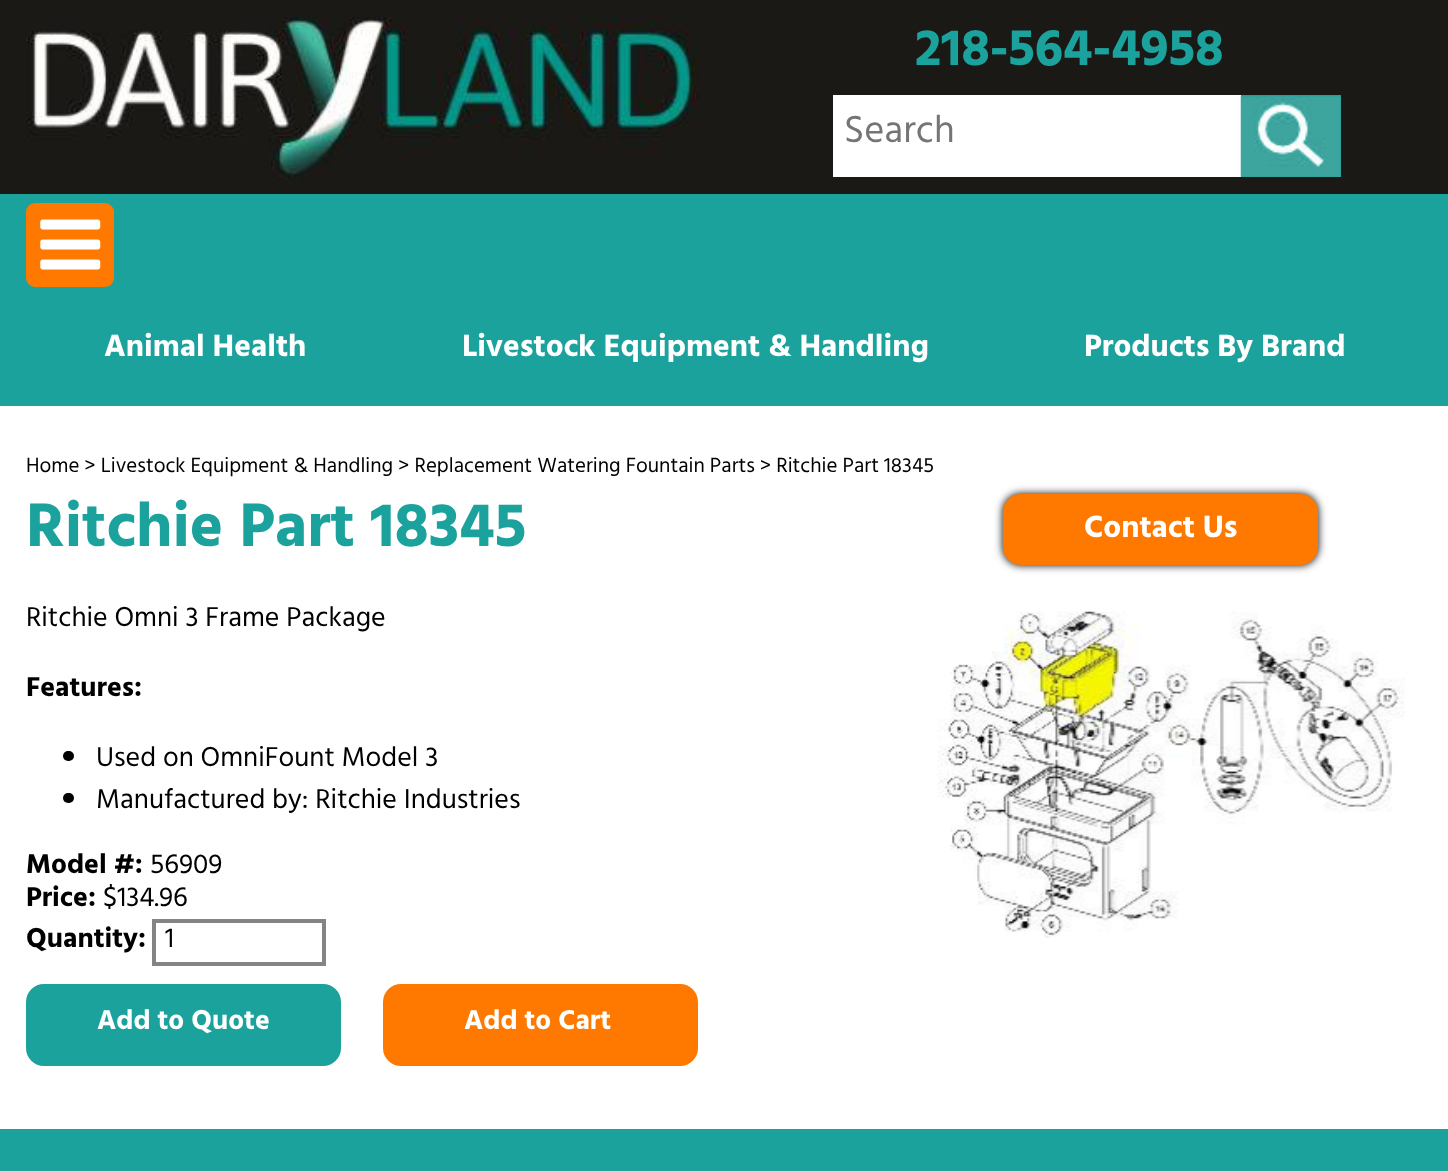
<!DOCTYPE html>
<meta charset="utf-8">
<style>body { margin: 0 } canvas { display: block }</style>
<canvas id="canvas" width="1448" height="1171"></canvas>
<script type="module">
  const canvas = document.getElementById("canvas");
  const ctx = canvas.getContext("2d");
  ctx.miterLimit = 4;
  ctx.fontKerning = "normal";
  async function loadImage(src) {
    const img = new Image();
    img.src = src;
    await img.decode();
    return img;
  }

  ctx.fillStyle = "#ffffff";
  ctx.fillRect(0, 0, 1448, 1171);
  ctx.fillStyle = "#1a1915";
  ctx.fillRect(0, 0, 1448, 194);
  ctx.drawImage(await loadImage("img1.png"), 26, 17, 672, 163);
  ctx.font = "bold 52.5px Hind Guntur";
  ctx.fillStyle = "#1ca29d";
  ctx.fillText("218-564-4958", 915, 65);
  ctx.fillStyle = "#ffffff";
  ctx.fillRect(833, 95, 408, 82);
  ctx.font = "38.5px Hind Guntur";
  ctx.fillStyle = "#757575";
  ctx.fillText("Search", 844, 142);
  ctx.fillStyle = "#1ca29d";
  ctx.fillRect(1241, 95, 100, 82);
  ctx.drawImage(await loadImage("img2.png"), 1240, 96, 101, 81);
  ctx.fillRect(0, 194, 1448, 212);
  ctx.fillStyle = "#ff7800";
  ctx.beginPath();
  ctx.roundRect(26, 203, 88, 84, 9);
  ctx.fill();
  ctx.drawImage(await loadImage("img3.png"), 40, 219, 61, 51);
  ctx.font = "bold 31.5px Hind Guntur";
  ctx.fillStyle = "#ffffff";
  ctx.fillText("Animal Health", 104, 356);
  ctx.fillText("Livestock Equipment & Handling", 462, 356);
  ctx.fillText("Products By Brand", 1084, 356);
  ctx.font = "21px Hind Guntur";
  ctx.fillStyle = "#000000";
  ctx.fillText("Home > Livestock Equipment & Handling > Replacement Watering Fountain Parts > Ritchie Part 18345", 26, 472);
  ctx.font = "bold 63px Hind Guntur";
  ctx.fillStyle = "#1ca29d";
  ctx.fillText("Ritchie Part 18345", 26, 546);
  ctx.fillStyle = "#000000";
  ctx.filter = "blur(4.5px)";
  ctx.beginPath();
  ctx.roundRect(1003, 494, 315, 71, 18);
  ctx.fill();
  ctx.filter = "none";
  ctx.fillStyle = "#ff7800";
  ctx.beginPath();
  ctx.roundRect(1003, 494, 315, 71, 18);
  ctx.fill();
  ctx.font = "bold 31.5px Hind Guntur";
  ctx.fillStyle = "#ffffff";
  ctx.fillText("Contact Us", 1084, 537);
  ctx.font = "28px Hind Guntur";
  ctx.fillStyle = "#000000";
  ctx.fillText("Ritchie Omni 3 Frame Package", 26, 626);
  ctx.font = "bold 28px Hind Guntur";
  ctx.fillText("Features:", 26, 696);
  ctx.beginPath();
  ctx.roundRect(63, 751, 11, 10, 5);
  ctx.fill();
  ctx.font = "28px Hind Guntur";
  ctx.fillText("Used on OmniFount Model 3", 96, 766);
  ctx.beginPath();
  ctx.roundRect(63, 793, 11, 10, 5);
  ctx.fill();
  ctx.fillText("Manufactured by: Ritchie Industries", 96, 808);
  ctx.drawImage(await loadImage("img4.png"), 937, 611, 468, 327);
  ctx.font = "bold 28px Hind Guntur";
  ctx.fillText("Model #:", 26, 873);
  ctx.font = "28px Hind Guntur";
  ctx.fillText("56909", 150, 873);
  ctx.font = "bold 28px Hind Guntur";
  ctx.fillText("Price:", 26, 906);
  ctx.font = "28px Hind Guntur";
  ctx.fillText("$134.96", 103, 906);
  ctx.font = "bold 28px Hind Guntur";
  ctx.fillText("Quantity:", 26, 947);
  ctx.strokeStyle = "#848484";
  ctx.lineWidth = 4;
  ctx.strokeRect(154, 921, 170, 43);
  ctx.font = "28px Hind Guntur";
  ctx.fillText("1", 165, 947);
  ctx.fillStyle = "#1ca29d";
  ctx.beginPath();
  ctx.roundRect(27, 985, 313, 80, 17);
  ctx.fill();
  ctx.strokeStyle = "#1ca29d";
  ctx.lineWidth = 2;
  ctx.stroke();
  ctx.font = "bold 28px Hind Guntur";
  ctx.fillStyle = "#ffffff";
  ctx.fillText("Add to Quote", 97, 1029);
  ctx.fillStyle = "#ff7800";
  ctx.beginPath();
  ctx.roundRect(384, 985, 313, 80, 17);
  ctx.fill();
  ctx.strokeStyle = "#ff7800";
  ctx.stroke();
  ctx.fillStyle = "#ffffff";
  ctx.fillText("Add to Cart", 464, 1029);
  ctx.fillStyle = "#1ca29d";
  ctx.fillRect(0, 1129, 1448, 42);
</script>
